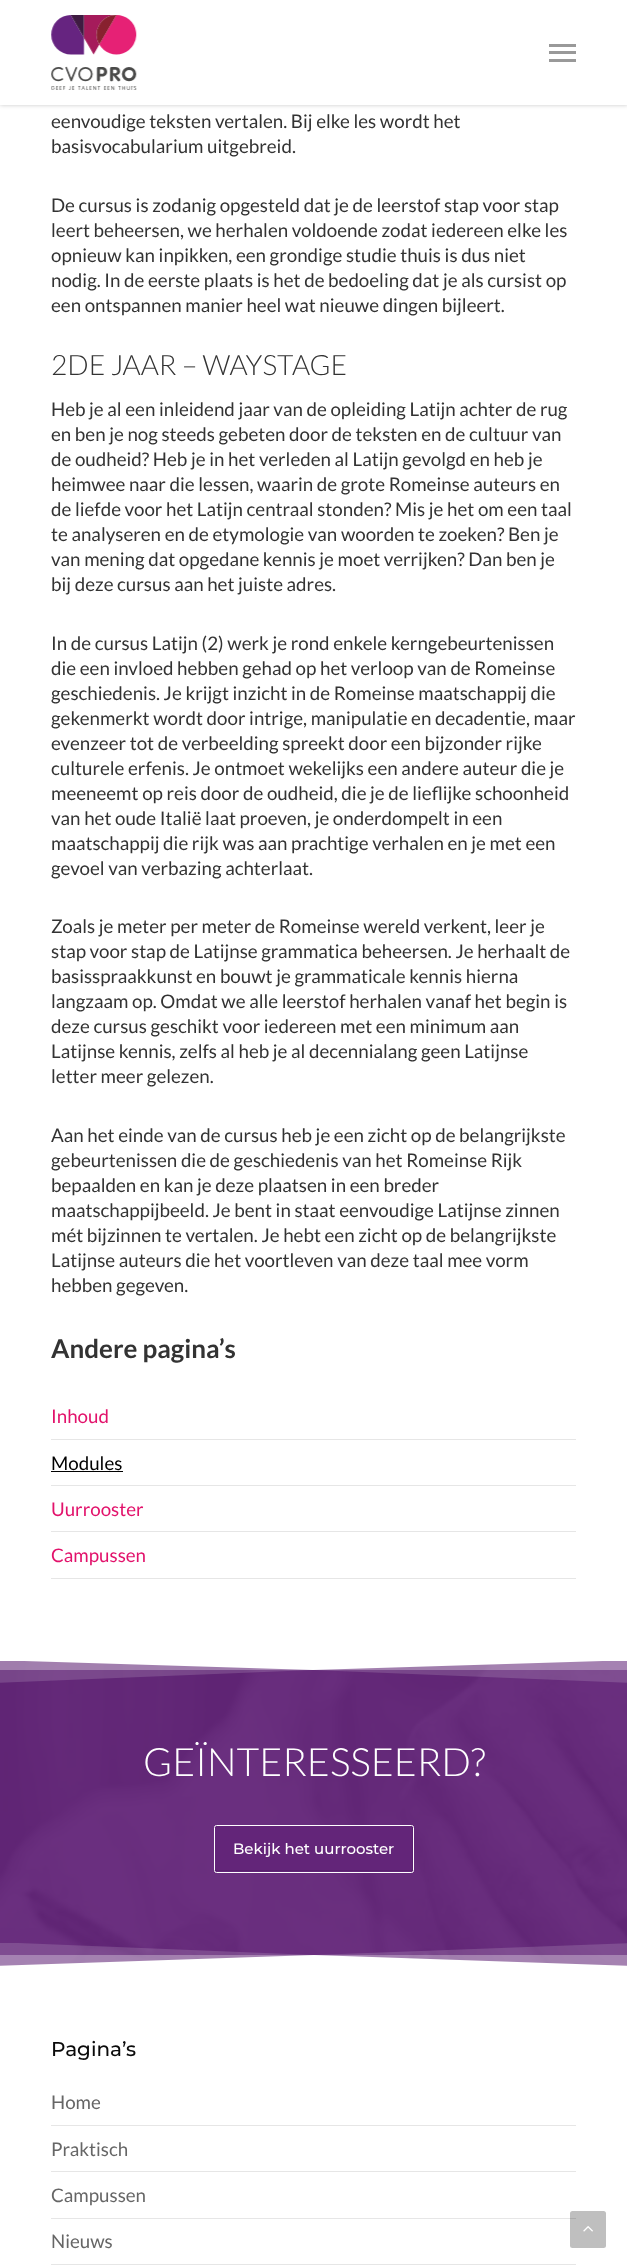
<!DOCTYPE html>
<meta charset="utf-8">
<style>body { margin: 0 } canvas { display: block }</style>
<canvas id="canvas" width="627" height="2265"></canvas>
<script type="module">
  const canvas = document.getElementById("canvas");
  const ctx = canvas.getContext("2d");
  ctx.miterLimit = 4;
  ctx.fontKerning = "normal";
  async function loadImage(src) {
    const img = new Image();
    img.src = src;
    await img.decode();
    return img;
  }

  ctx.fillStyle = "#ffffff";
  ctx.fillRect(0, 0, 627, 2265);
  ctx.fillStyle = "rgba(0, 0, 0, 0.22)";
  ctx.filter = "blur(2px)";
  ctx.beginPath();
  ctx.rect(0, 0, 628, 105);
  ctx.fill();
  ctx.filter = "none";
  ctx.fillStyle = "#ffffff";
  ctx.fillRect(0, 0, 627, 105);
  ctx.drawImage(await loadImage("img1.png"), 51, 15, 86, 75);
  ctx.fillStyle = "#999999";
  ctx.fillRect(549, 44, 27, 3);
  ctx.fillRect(549, 59, 27, 3);
  ctx.fillRect(549, 51, 27, 3);
  ctx.font = "18.75px Lato";
  ctx.fillStyle = "#333333";
  ctx.fillText("eenvoudige teksten vertalen. Bij elke les wordt het", 51, 128);
  ctx.fillText("basisvocabularium uitgebreid.", 51, 153);
  ctx.fillText("De cursus is zodanig opgesteld dat je de leerstof stap voor stap", 51, 212);
  ctx.fillText("leert beheersen, we herhalen voldoende zodat iedereen elke les", 51, 237);
  ctx.fillText("opnieuw kan inpikken, een grondige studie thuis is dus niet", 51, 262);
  ctx.fillText("nodig. In de eerste plaats is het de bedoeling dat je als cursist op", 51, 287);
  ctx.fillText("een ontspannen manier heel wat nieuwe dingen bijleert.", 51, 312);
  ctx.font = "300 28.1px Lato";
  ctx.fillText("2DE JAAR – WAYSTAGE", 51, 375);
  ctx.font = "18.75px Lato";
  ctx.fillText("Heb je al een inleidend jaar van de opleiding Latijn achter de rug", 51, 416);
  ctx.fillText("en ben je nog steeds gebeten door de teksten en de cultuur van", 51, 441);
  ctx.fillText("de oudheid? Heb je in het verleden al Latijn gevolgd en heb je", 51, 466);
  ctx.fillText("heimwee naar die lessen, waarin de grote Romeinse auteurs en", 51, 491);
  ctx.fillText("de liefde voor het Latijn centraal stonden? Mis je het om een taal", 51, 516);
  ctx.fillText("te analyseren en de etymologie van woorden te zoeken? Ben je", 51, 541);
  ctx.fillText("van mening dat opgedane kennis je moet verrijken? Dan ben je", 51, 566);
  ctx.fillText("bij deze cursus aan het juiste adres.", 51, 591);
  ctx.fillText("In de cursus Latijn (2) werk je rond enkele kerngebeurtenissen", 51, 650);
  ctx.fillText("die een invloed hebben gehad op het verloop van de Romeinse", 51, 675);
  ctx.fillText("geschiedenis. Je krijgt inzicht in de Romeinse maatschappij die", 51, 700);
  ctx.fillText("gekenmerkt wordt door intrige, manipulatie en decadentie, maar", 51, 725);
  ctx.fillText("evenzeer tot de verbeelding spreekt door een bijzonder rijke", 51, 750);
  ctx.fillText("culturele erfenis. Je ontmoet wekelijks een andere auteur die je", 51, 775);
  ctx.fillText("meeneemt op reis door de oudheid, die je de lieflijke schoonheid", 51, 800);
  ctx.fillText("van het oude Italië laat proeven, je onderdompelt in een", 51, 825);
  ctx.fillText("maatschappij die rijk was aan prachtige verhalen en je met een", 51, 850);
  ctx.fillText("gevoel van verbazing achterlaat.", 51, 875);
  ctx.fillText("Zoals je meter per meter de Romeinse wereld verkent, leer je", 51, 933);
  ctx.fillText("stap voor stap de Latijnse grammatica beheersen. Je herhaalt de", 51, 958);
  ctx.fillText("basisspraakkunst en bouwt je grammaticale kennis hierna", 51, 983);
  ctx.fillText("langzaam op. Omdat we alle leerstof herhalen vanaf het begin is", 51, 1008);
  ctx.fillText("deze cursus geschikt voor iedereen met een minimum aan", 51, 1033);
  ctx.fillText("Latijnse kennis, zelfs al heb je al decennialang geen Latijnse", 51, 1058);
  ctx.fillText("letter meer gelezen.", 51, 1083);
  ctx.fillText("Aan het einde van de cursus heb je een zicht op de belangrijkste", 51, 1142);
  ctx.fillText("gebeurtenissen die de geschiedenis van het Romeinse Rijk", 51, 1167);
  ctx.fillText("bepaalden en kan je deze plaatsen in een breder", 51, 1192);
  ctx.fillText("maatschappijbeeld. Je bent in staat eenvoudige Latijnse zinnen", 51, 1217);
  ctx.fillText("mét bijzinnen te vertalen. Je hebt een zicht op de belangrijkste", 51, 1242);
  ctx.fillText("Latijnse auteurs die het voortleven van deze taal mee vorm", 51, 1267);
  ctx.fillText("hebben gegeven.", 51, 1292);
  ctx.font = "bold 26px Lato";
  ctx.fillText("Andere pagina’s", 51, 1358);
  ctx.fillStyle = "#e6e6e6";
  ctx.fillRect(51, 1439, 525, 1);
  ctx.font = "18.75px Lato";
  ctx.fillStyle = "#e2126b";
  ctx.fillText("Inhoud", 51, 1423);
  ctx.fillStyle = "#e6e6e6";
  ctx.fillRect(51, 1485, 525, 1);
  ctx.fillStyle = "#000000";
  ctx.fillText("Modules", 51, 1470);
  ctx.fillRect(51, 1471, 72, 1);
  ctx.fillStyle = "#e6e6e6";
  ctx.fillRect(51, 1531, 525, 1);
  ctx.fillStyle = "#e2126b";
  ctx.fillText("Uurrooster", 51, 1516);
  ctx.fillStyle = "#e6e6e6";
  ctx.fillRect(51, 1578, 525, 1);
  ctx.fillStyle = "#e2126b";
  ctx.fillText("Campussen", 51, 1562);
  ctx.drawImage(await loadImage("img2.png"), 0, 1661, 627, 305);
  ctx.save();
  ctx.beginPath();
  ctx.rect(0, 1659, 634, 24);
  ctx.clip();
  ctx.fillStyle = "#ffffff";
  ctx.beginPath();
  ctx.moveTo(313, 1670);
  ctx.lineTo(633, 1660);
  ctx.lineTo(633, 1658);
  ctx.lineTo(-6, 1658);
  ctx.lineTo(-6, 1660);
  ctx.closePath();
  ctx.fill();
  ctx.fillStyle = "rgba(255, 255, 255, 0.15)";
  ctx.beginPath();
  ctx.moveTo(313, 1670);
  ctx.lineTo(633, 1683);
  ctx.lineTo(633, 1658);
  ctx.lineTo(-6, 1658);
  ctx.lineTo(-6, 1683);
  ctx.closePath();
  ctx.fill();
  ctx.restore();
  ctx.fillStyle = "rgba(255, 255, 255, 0.3)";
  ctx.fillRect(0, 1661, 627, 9);
  ctx.font = "300 39px Lato";
  ctx.fillStyle = "#ffffff";
  ctx.fillText("GEÏNTERESSEERD?", 143, 1776);
  ctx.fillStyle = "#632579";
  ctx.beginPath();
  ctx.roundRect(214, 1825, 200, 48, 2.5);
  ctx.fill();
  ctx.fillStyle = "#59216d";
  ctx.beginPath();
  ctx.moveTo(215, 1869);
  ctx.lineTo(215, 1870);
  ctx.bezierCurveTo(215, 1871, 215, 1871, 216, 1871);
  ctx.lineTo(412, 1871);
  ctx.bezierCurveTo(413, 1871, 413, 1871, 413, 1870);
  ctx.lineTo(413, 1827);
  ctx.bezierCurveTo(413, 1826, 413, 1826, 412, 1826);
  ctx.lineTo(412, 1869);
  ctx.bezierCurveTo(412, 1869, 412, 1870, 411, 1870);
  ctx.lineTo(216, 1870);
  ctx.closePath();
  ctx.fill();
  ctx.beginPath();
  ctx.roundRect(214.5, 1825.5, 199, 47, 2);
  ctx.strokeStyle = "#ffffff";
  ctx.stroke();
  ctx.font = "100 15px Montserrat";
  ctx.fillStyle = "#ffffff";
  ctx.fillText("Bekijk het uurrooster", 233, 1854);
  ctx.beginPath();
  ctx.moveTo(314, 1955);
  ctx.lineTo(-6, 1966);
  ctx.lineTo(-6, 1967);
  ctx.lineTo(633, 1967);
  ctx.lineTo(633, 1966);
  ctx.closePath();
  ctx.fill();
  ctx.save();
  ctx.beginPath();
  ctx.rect(0, 1943, 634, 25);
  ctx.clip();
  ctx.fillStyle = "rgba(255, 255, 255, 0.15)";
  ctx.beginPath();
  ctx.moveTo(314, 1955);
  ctx.lineTo(-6, 1942);
  ctx.lineTo(-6, 1967);
  ctx.lineTo(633, 1967);
  ctx.lineTo(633, 1943);
  ctx.closePath();
  ctx.fill();
  ctx.restore();
  ctx.fillStyle = "rgba(255, 255, 255, 0.3)";
  ctx.fillRect(0, 1955, 627, 11);
  ctx.font = "100 20px Montserrat";
  ctx.fillStyle = "#0a0a0a";
  ctx.fillText("Pagina’s", 51, 2056);
  ctx.fillStyle = "#e6e6e6";
  ctx.fillRect(51, 2125, 525, 1);
  ctx.font = "18.75px Lato";
  ctx.fillStyle = "#666666";
  ctx.fillText("Home", 51, 2109);
  ctx.fillStyle = "#e6e6e6";
  ctx.fillRect(51, 2171, 525, 1);
  ctx.fillStyle = "#666666";
  ctx.fillText("Praktisch", 51, 2156);
  ctx.fillStyle = "#e6e6e6";
  ctx.fillRect(51, 2218, 525, 1);
  ctx.fillStyle = "#666666";
  ctx.fillText("Campussen", 51, 2202);
  ctx.fillStyle = "#e6e6e6";
  ctx.fillRect(51, 2264, 525, 1);
  ctx.fillStyle = "#666666";
  ctx.fillText("Nieuws", 51, 2248);
  ctx.fillStyle = "rgba(0, 0, 0, 0.25)";
  ctx.beginPath();
  ctx.roundRect(570, 2211, 36, 37, 2.5);
  ctx.fill();
  ctx.drawImage(await loadImage("img3.png"), 583, 2226, 10, 6);
</script>
